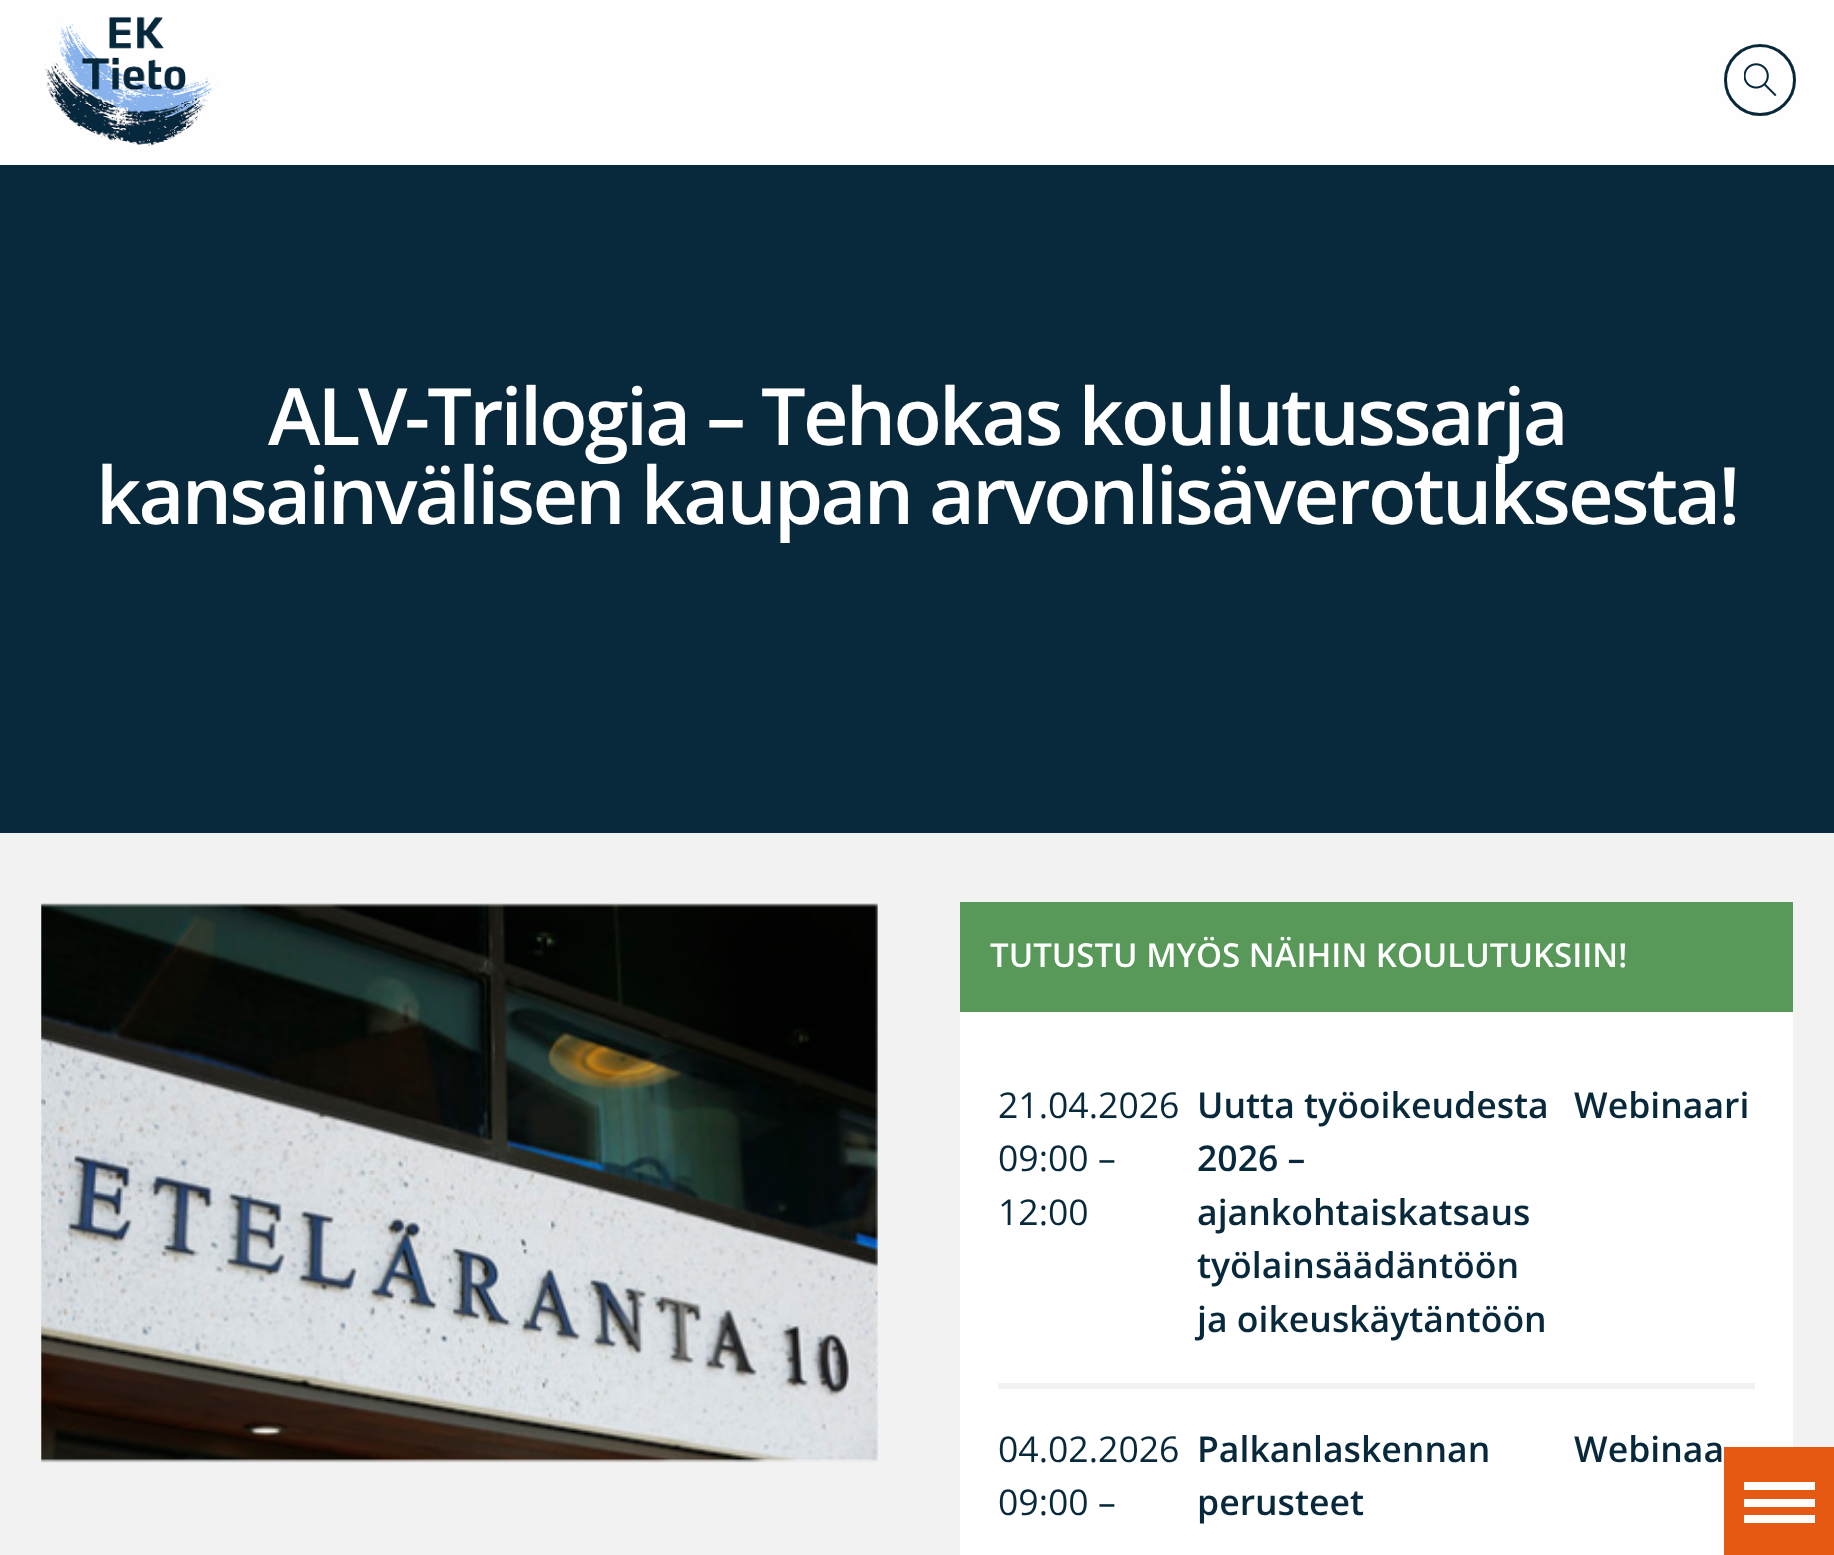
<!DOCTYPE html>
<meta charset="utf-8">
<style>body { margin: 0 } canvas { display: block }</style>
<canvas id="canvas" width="1834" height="1555"></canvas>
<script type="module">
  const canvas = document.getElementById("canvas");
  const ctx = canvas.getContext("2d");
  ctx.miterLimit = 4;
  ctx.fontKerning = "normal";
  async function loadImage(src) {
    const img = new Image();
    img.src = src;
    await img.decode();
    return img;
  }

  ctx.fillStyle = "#f2f2f2";
  ctx.fillRect(0, 0, 1834, 1555);
  ctx.fillStyle = "#fefefe";
  ctx.fillRect(0, 0, 1834, 165);
  ctx.drawImage(await loadImage("img1.png"), 45, 16, 173, 130);
  ctx.beginPath();
  ctx.arc(1760, 80, 34.5, 0, Math.PI * 2);
  ctx.strokeStyle = "#08293c";
  ctx.lineWidth = 3;
  ctx.stroke();
  ctx.drawImage(await loadImage("img2.png"), 1744, 63, 33, 33);
  ctx.fillStyle = "#08293c";
  ctx.fillRect(0, 165, 1834, 668);
  ctx.letterSpacing = "-2.75px";
  ctx.font = "600 79.2px Open Sans";
  ctx.fillStyle = "#ffffff";
  ctx.fillText("ALV-Trilogia – Tehokas koulutussarja", 268, 445);
  ctx.fillText("kansainvälisen kaupan arvonlisäverotuksesta!", 96, 524);
  ctx.drawImage(await loadImage("img3.png"), 41, 903, 837, 560);
  ctx.fillRect(960, 1012, 833, 543);
  ctx.fillStyle = "#589859";
  ctx.fillRect(960, 902, 833, 110);
  ctx.letterSpacing = "0px";
  ctx.font = "600 33px Open Sans";
  ctx.fillStyle = "#ffffff";
  ctx.fillText("TUTUSTU MYÖS NÄIHIN KOULUTUKSIIN!", 990, 967);
  ctx.fillStyle = "#f2f2f2";
  ctx.fillRect(998, 1383, 757, 6);
  ctx.font = "35.6px Open Sans";
  ctx.fillStyle = "#08293c";
  ctx.fillText("21.04.2026", 998, 1118);
  ctx.fillText("09:00 –", 998, 1171);
  ctx.fillText("12:00", 998, 1225);
  ctx.font = "600 35.6px Open Sans";
  ctx.fillText("Uutta työoikeudesta", 1197, 1118);
  ctx.fillText("2026 –", 1197, 1171);
  ctx.fillText("ajankohtaiskatsaus", 1197, 1225);
  ctx.fillText("työlainsäädäntöön", 1197, 1278);
  ctx.fillText("ja oikeuskäytäntöön", 1197, 1332);
  ctx.fillText("Webinaari", 1574, 1118);
  ctx.font = "35.6px Open Sans";
  ctx.fillText("04.02.2026", 998, 1462);
  ctx.fillText("09:00 –", 998, 1515);
  ctx.font = "600 35.6px Open Sans";
  ctx.fillText("Palkanlaskennan", 1197, 1462);
  ctx.fillText("perusteet", 1197, 1515);
  ctx.fillText("Webinaa", 1574, 1462);
  ctx.fillStyle = "#e55912";
  ctx.fillRect(1724, 1447, 110, 108);
  ctx.fillStyle = "#ffffff";
  ctx.fillRect(1744, 1482, 71, 8);
  ctx.fillRect(1744, 1499, 71, 8);
  ctx.fillRect(1744, 1515, 71, 8);
</script>
